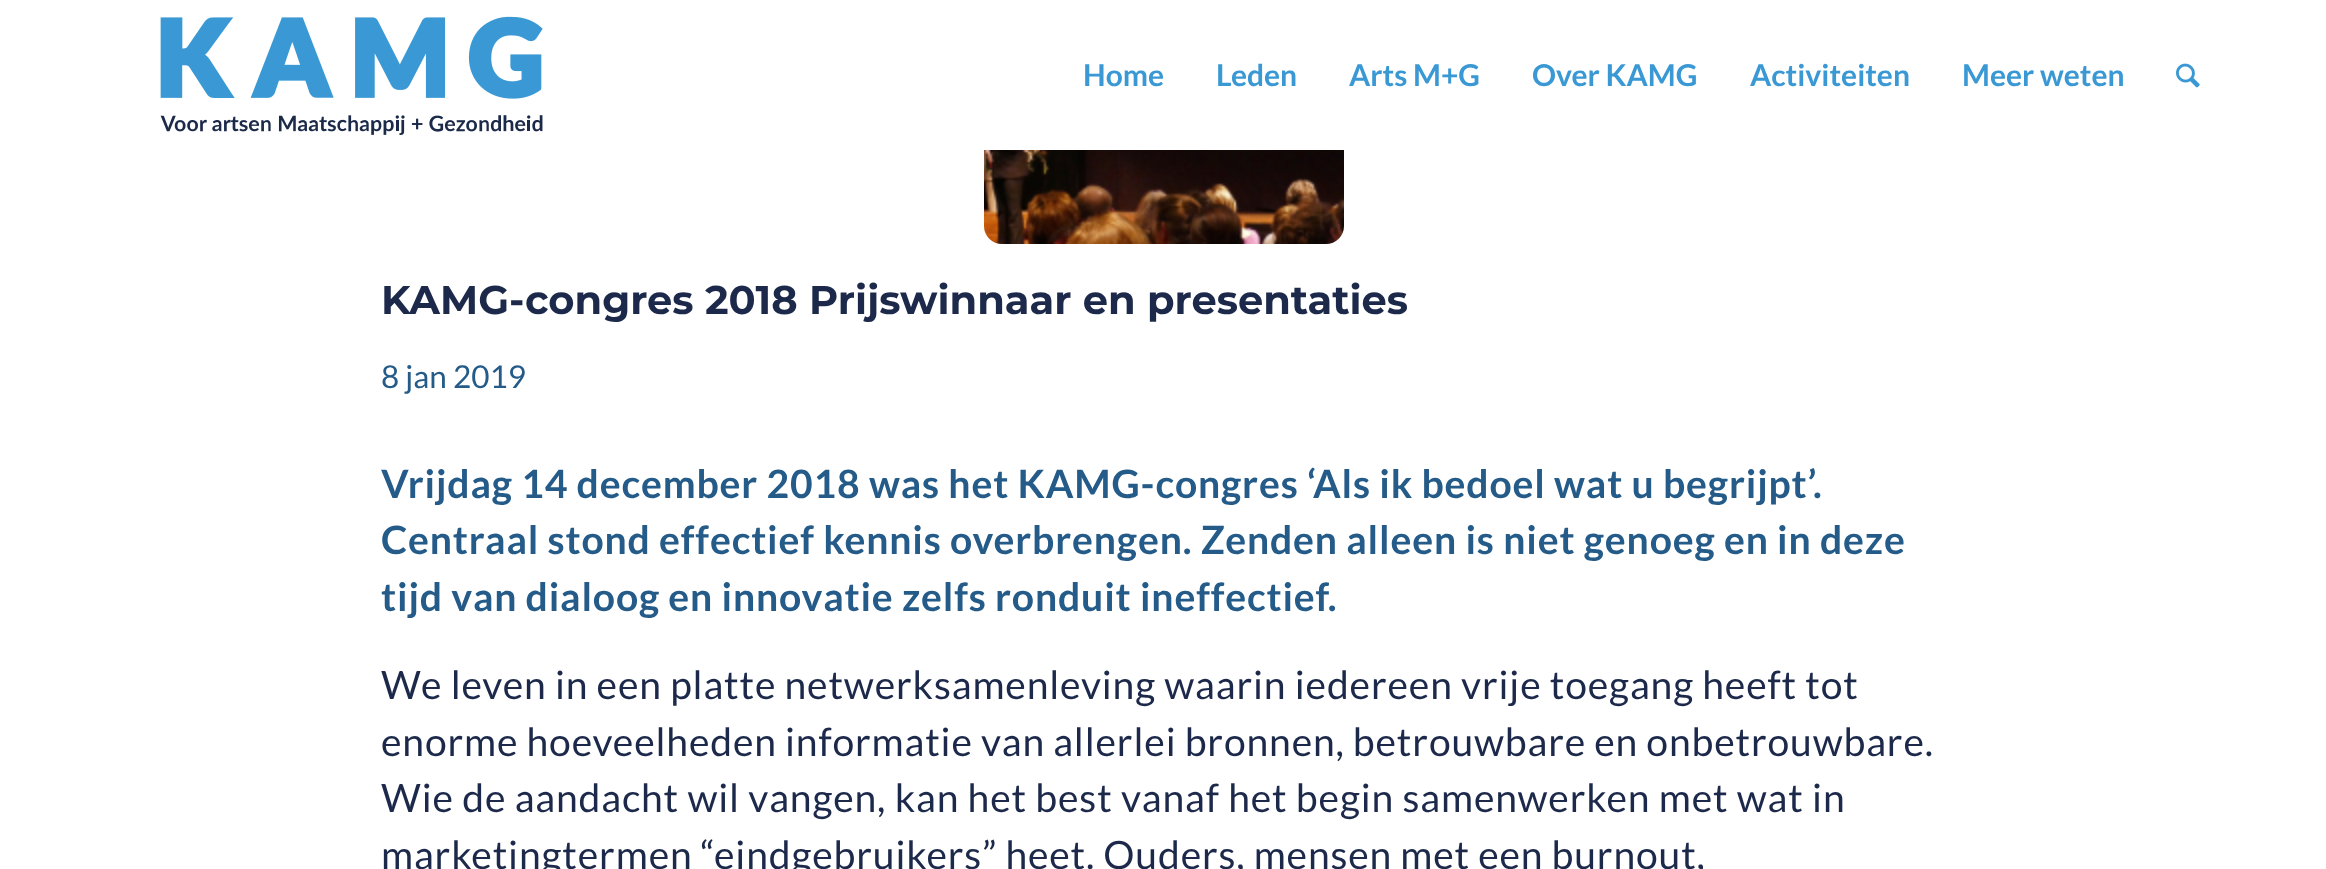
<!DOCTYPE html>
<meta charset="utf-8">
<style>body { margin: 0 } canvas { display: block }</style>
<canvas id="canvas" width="2326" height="869"></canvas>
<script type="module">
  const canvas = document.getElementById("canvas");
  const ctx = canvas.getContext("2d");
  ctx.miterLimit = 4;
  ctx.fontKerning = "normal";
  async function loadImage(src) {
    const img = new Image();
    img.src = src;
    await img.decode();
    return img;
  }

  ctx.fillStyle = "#ffffff";
  ctx.fillRect(0, 0, 2326, 869);
  ctx.drawImage(await loadImage("img1.png"), 160, 16, 383, 119);
  ctx.font = "bold 30px Lato";
  ctx.fillStyle = "#3a99d4";
  ctx.fillText("Home", 1083, 86);
  ctx.fillText("Leden", 1216, 86);
  ctx.fillText("Arts M+G", 1349, 86);
  ctx.fillText("Over KAMG", 1532, 86);
  ctx.fillText("Activiteiten", 1750, 86);
  ctx.fillText("Meer weten", 1962, 86);
  ctx.drawImage(await loadImage("img2.png"), 2176, 63, 24, 25);
  ctx.drawImage(await loadImage("img3.png"), 984, 150, 360, 94);
  ctx.font = "bold 40px Montserrat";
  ctx.fillStyle = "#1c294a";
  ctx.fillText("KAMG-congres 2018 Prijswinnaar en presentaties", 381, 314);
  ctx.font = "31.5px Lato";
  ctx.fillStyle = "#245b88";
  ctx.fillText("8 jan 2019", 381, 388);
  ctx.letterSpacing = "0.85px";
  ctx.font = "bold 39.1px Lato";
  ctx.fillText("Vrijdag 14 december 2018 was het KAMG-congres ‘Als ik bedoel wat u begrijpt’.", 381, 498);
  ctx.fillText("Centraal stond effectief kennis overbrengen. Zenden alleen is niet genoeg en in deze", 381, 554);
  ctx.wordSpacing = "-0.1px";
  ctx.fillText("tijd van dialoog en innovatie zelfs ronduit ineffectief.", 381, 611);
  ctx.font = "39.1px Lato";
  ctx.fillStyle = "#1c294a";
  ctx.fillText("We leven in een platte netwerksamenleving waarin iedereen vrije toegang heeft tot", 381, 699);
  ctx.wordSpacing = "-0.25px";
  ctx.fillText("enorme hoeveelheden informatie van allerlei bronnen, betrouwbare en onbetrouwbare.", 381, 756);
  ctx.wordSpacing = "0px";
  ctx.fillText("Wie de aandacht wil vangen, kan het best vanaf het begin samenwerken met wat in", 381, 812);
  ctx.wordSpacing = "-0.25px";
  ctx.fillText("marketingtermen “eindgebruikers” heet. Ouders, mensen met een burnout,", 381, 869);
</script>
